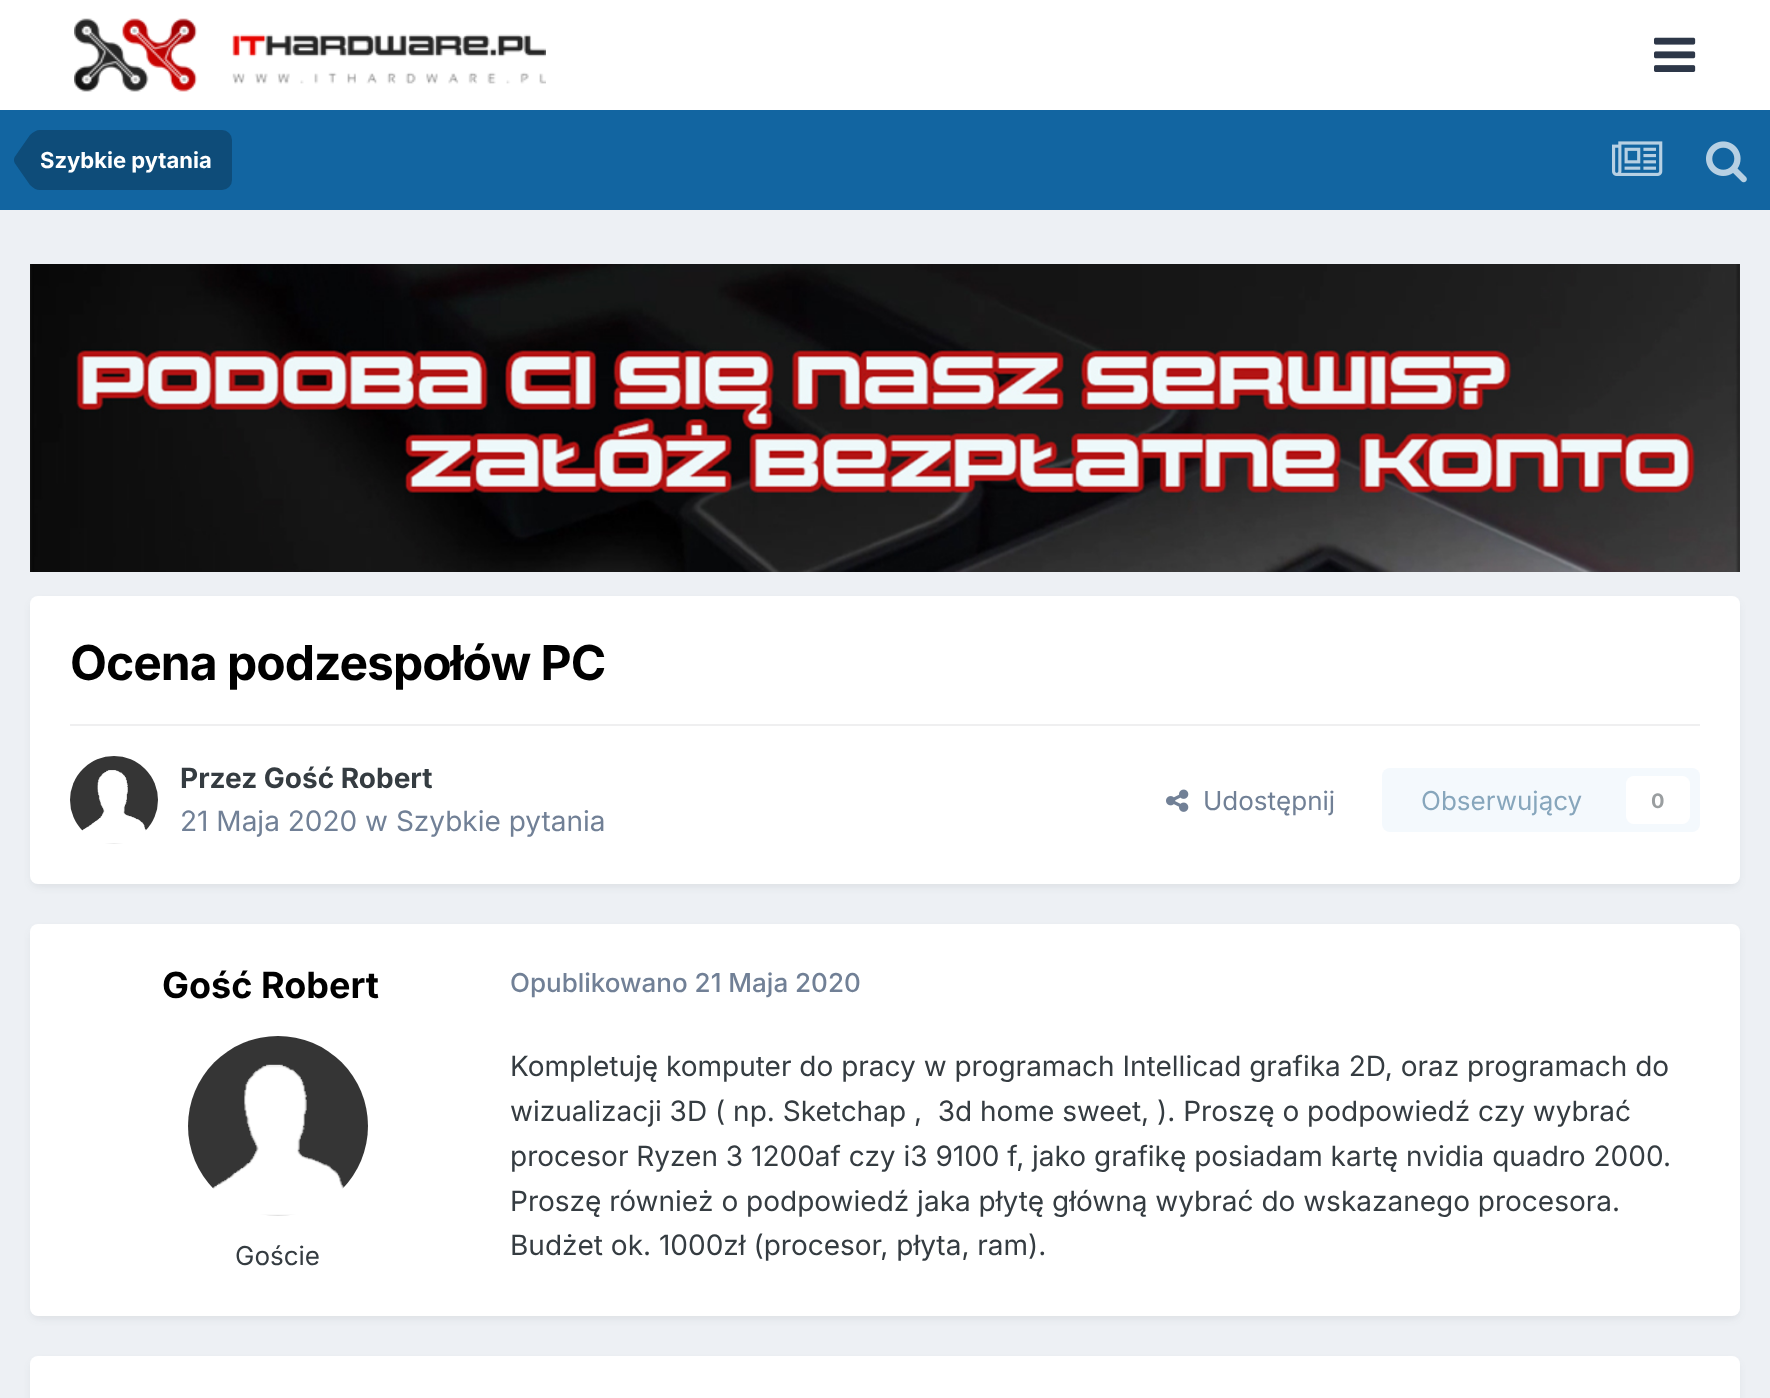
<!DOCTYPE html>
<meta charset="utf-8">
<style>body { margin: 0 } canvas { display: block }</style>
<canvas id="canvas" width="1770" height="1398"></canvas>
<script type="module">
  const canvas = document.getElementById("canvas");
  const ctx = canvas.getContext("2d");
  ctx.miterLimit = 4;
  ctx.fontKerning = "normal";
  async function loadImage(src) {
    const img = new Image();
    img.src = src;
    await img.decode();
    return img;
  }

  ctx.fillStyle = "#edf0f4";
  ctx.fillRect(0, 0, 1770, 1398);
  ctx.fillStyle = "#ffffff";
  ctx.fillRect(0, 0, 1770, 110);
  ctx.drawImage(await loadImage("img1.png"), 74, 18, 472, 74);
  ctx.drawImage(await loadImage("img2.png"), 1654, 37, 42, 35);
  ctx.fillStyle = "#1265a1";
  ctx.fillRect(0, 110, 1770, 100);
  ctx.fillStyle = "#0e4c79";
  ctx.beginPath();
  ctx.roundRect(40, 130, 192, 60, [0, 10, 10, 0]);
  ctx.fill();
  ctx.beginPath();
  ctx.moveTo(40, 160);
  ctx.lineTo(40, 190);
  ctx.bezierCurveTo(36.5, 190, 33, 188, 30, 185);
  ctx.lineTo(15, 163.5);
  ctx.bezierCurveTo(14.5, 162.5, 14, 161.5, 14, 160);
  ctx.closePath();
  ctx.moveTo(40, 160);
  ctx.lineTo(14, 160);
  ctx.bezierCurveTo(14, 158.5, 14.5, 157.5, 15, 156.5);
  ctx.lineTo(30, 135);
  ctx.bezierCurveTo(33, 132, 36.5, 130, 40, 130);
  ctx.closePath();
  ctx.fill();
  ctx.font = "bold 22px Inter";
  ctx.fillStyle = "#ffffff";
  ctx.fillText("Szybkie pytania", 40, 168);
  ctx.drawImage(await loadImage("img3.png"), 1612, 141, 51, 35);
  ctx.drawImage(await loadImage("img4.png"), 1706, 141, 41, 42);
  ctx.drawImage(await loadImage("img5.png"), 30, 264, 1710, 308);
  ctx.fillStyle = "rgba(45, 55, 72, 0.1)";
  ctx.filter = "blur(4px)";
  ctx.beginPath();
  ctx.roundRect(32, 602, 1706, 284, 6);
  ctx.fill();
  ctx.filter = "none";
  ctx.fillStyle = "#ffffff";
  ctx.beginPath();
  ctx.roundRect(30, 596, 1710, 288, 8);
  ctx.fill();
  ctx.letterSpacing = "-1px";
  ctx.font = "bold 48px Inter";
  ctx.fillStyle = "#000000";
  ctx.fillText("Ocena podzespołów PC", 70, 680);
  ctx.fillStyle = "#efeff0";
  ctx.fillRect(70, 724, 1630, 2);
  ctx.drawImage(await loadImage("img6.png"), 70, 756, 88, 88);
  ctx.letterSpacing = "0px";
  ctx.font = "bold 28px Inter";
  ctx.fillStyle = "#353c41";
  ctx.fillText("Przez Gość Robert", 180, 788);
  ctx.font = "28px Inter";
  ctx.fillStyle = "#718096";
  ctx.fillText("21 Maja 2020 w Szybkie pytania", 180, 831);
  ctx.drawImage(await loadImage("img7.png"), 1166, 789, 23, 23);
  ctx.font = "26px Inter";
  ctx.fillText("Udostępnij", 1203, 810);
  ctx.fillStyle = "#f4f9fd";
  ctx.beginPath();
  ctx.roundRect(1382, 768, 318, 64, 8);
  ctx.fill();
  ctx.fillStyle = "#87a6bc";
  ctx.fillText("Obserwujący", 1421, 810);
  ctx.fillStyle = "#ffffff";
  ctx.beginPath();
  ctx.roundRect(1626, 776, 64, 48, 8);
  ctx.fill();
  ctx.font = "bold 20px Inter";
  ctx.fillStyle = "#9a9ea0";
  ctx.fillText("0", 1651, 808);
  ctx.fillStyle = "rgba(45, 55, 72, 0.1)";
  ctx.filter = "blur(4px)";
  ctx.beginPath();
  ctx.roundRect(32, 930, 1706, 388, 6);
  ctx.fill();
  ctx.filter = "none";
  ctx.fillStyle = "#ffffff";
  ctx.beginPath();
  ctx.roundRect(30, 924, 1710, 392, 8);
  ctx.fill();
  ctx.font = "bold 36px Inter";
  ctx.fillStyle = "#000000";
  ctx.fillText("Gość Robert", 162, 998);
  ctx.drawImage(await loadImage("img8.png"), 188, 1036, 180, 180);
  ctx.font = "26px Inter";
  ctx.fillStyle = "#353c41";
  ctx.fillText("Goście", 235, 1265);
  ctx.font = "500 26px Inter";
  ctx.fillStyle = "#718096";
  ctx.fillText("Opublikowano 21 Maja 2020", 510, 992);
  ctx.font = "28px Inter";
  ctx.fillStyle = "#353c41";
  ctx.fillText("Kompletuję komputer do pracy w programach Intellicad grafika 2D, oraz programach do", 510, 1076);
  ctx.fillText("wizualizacji 3D ( np. Sketchap ,  3d home sweet, ). Proszę o podpowiedź czy wybrać", 510, 1121);
  ctx.fillText("procesor Ryzen 3 1200af czy i3 9100 f, jako grafikę posiadam kartę nvidia quadro 2000.", 510, 1166);
  ctx.fillText("Proszę również o podpowiedź jaka płytę główną wybrać do wskazanego procesora.", 510, 1211);
  ctx.fillText("Budżet ok. 1000zł (procesor, płyta, ram).", 510, 1255);
  ctx.fillStyle = "rgba(45, 55, 72, 0.1)";
  ctx.filter = "blur(4px)";
  ctx.beginPath();
  ctx.roundRect(32, 1362, 1706, 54, 6);
  ctx.fill();
  ctx.filter = "none";
  ctx.fillStyle = "#ffffff";
  ctx.beginPath();
  ctx.roundRect(30, 1356, 1710, 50, 8);
  ctx.fill();
</script>
